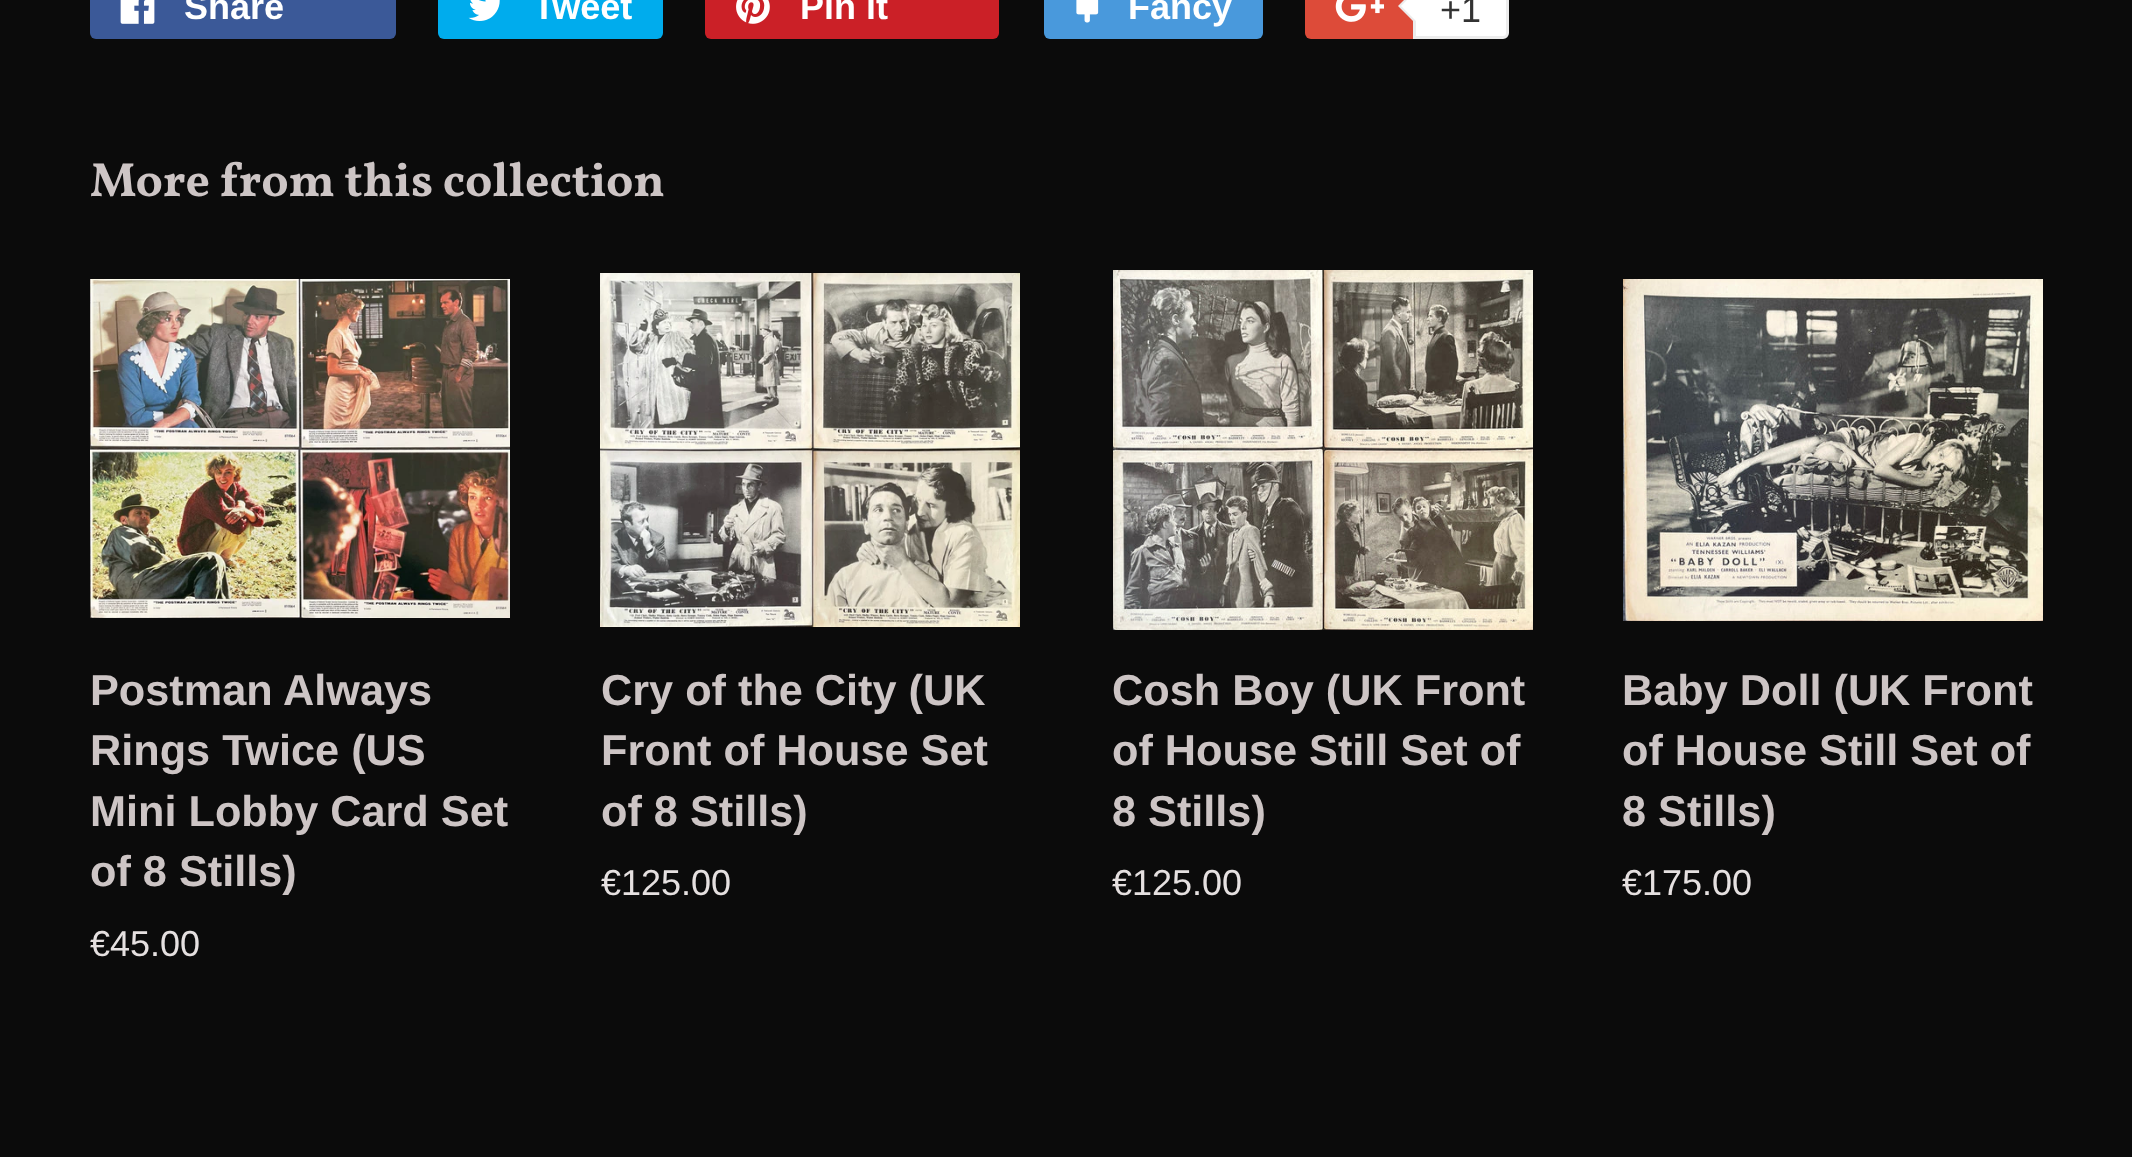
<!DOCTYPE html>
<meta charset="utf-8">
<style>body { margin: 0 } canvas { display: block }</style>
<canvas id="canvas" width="2132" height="1157"></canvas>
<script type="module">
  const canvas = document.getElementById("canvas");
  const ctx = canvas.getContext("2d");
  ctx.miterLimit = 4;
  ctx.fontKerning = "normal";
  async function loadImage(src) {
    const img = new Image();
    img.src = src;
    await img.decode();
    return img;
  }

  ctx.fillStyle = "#0b0b0b";
  ctx.fillRect(0, 0, 2132, 1157);
  ctx.fillStyle = "#3b5998";
  ctx.beginPath();
  ctx.roundRect(90, -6, 306, 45, 6);
  ctx.fill();
  ctx.drawImage(await loadImage("img1.png"), 120, 0, 35, 24);
  ctx.font = "bold 36px Liberation Sans";
  ctx.fillStyle = "#ffffff";
  ctx.fillText("Share", 184, 19);
  ctx.fillStyle = "#00aced";
  ctx.beginPath();
  ctx.roundRect(438, -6, 225, 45, 6);
  ctx.fill();
  ctx.drawImage(await loadImage("img2.png"), 468, 0, 32, 21);
  ctx.fillStyle = "#ffffff";
  ctx.fillText("Tweet", 533, 19);
  ctx.fillStyle = "#cb2027";
  ctx.beginPath();
  ctx.roundRect(705, -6, 294, 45, 6);
  ctx.fill();
  ctx.drawImage(await loadImage("img3.png"), 736, 0, 34, 24);
  ctx.fillStyle = "#ffffff";
  ctx.fillText("Pin it", 800, 19);
  ctx.fillStyle = "#4999dc";
  ctx.beginPath();
  ctx.roundRect(1044, -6, 219, 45, 6);
  ctx.fill();
  ctx.drawImage(await loadImage("img4.png"), 1076, 0, 23, 23);
  ctx.fillStyle = "#ffffff";
  ctx.fillText("Fancy", 1128, 19);
  ctx.fillStyle = "#dd4b39";
  ctx.beginPath();
  ctx.roundRect(1305, -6, 198, 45, 6);
  ctx.fill();
  ctx.drawImage(await loadImage("img5.png"), 1335, 0, 49, 22);
  ctx.fillStyle = "#ffffff";
  ctx.beginPath();
  ctx.moveTo(1414.5, -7.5);
  ctx.lineTo(1503, -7.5);
  ctx.bezierCurveTo(1505.5, -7.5, 1507.5, -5.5, 1507.5, -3);
  ctx.lineTo(1507.5, 33);
  ctx.bezierCurveTo(1507.5, 35.5, 1505.5, 37.5, 1503, 37.5);
  ctx.lineTo(1414.5, 37.5);
  ctx.closePath();
  ctx.fill();
  ctx.strokeStyle = "#ececec";
  ctx.lineWidth = 3;
  ctx.stroke();
  ctx.fillStyle = "#ececec";
  ctx.beginPath();
  ctx.moveTo(1416, -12);
  ctx.lineTo(1416, 24);
  ctx.lineTo(1398, 6);
  ctx.closePath();
  ctx.fill();
  ctx.fillStyle = "#ffffff";
  ctx.beginPath();
  ctx.moveTo(1419, -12);
  ctx.lineTo(1419, 24);
  ctx.lineTo(1401, 6);
  ctx.closePath();
  ctx.fill();
  ctx.font = "36px Liberation Sans";
  ctx.fillStyle = "#333333";
  ctx.fillText("+1", 1440, 22);
  ctx.font = "bold 48px Vollkorn";
  ctx.fillStyle = "#cdc5c5";
  ctx.fillText("More from this collection", 90, 196);
  ctx.drawImage(await loadImage("img6.png"), 90, 279, 420, 339);
  ctx.font = "bold 43.25px Liberation Sans";
  ctx.fillText("Postman Always", 90, 705);
  ctx.fillText("Rings Twice (US", 90, 765);
  ctx.fillText("Mini Lobby Card Set", 90, 826);
  ctx.fillText("of 8 Stills)", 90, 886);
  ctx.font = "36px Liberation Sans";
  ctx.fillStyle = "#e5e0e0";
  ctx.fillText("€45.00", 90, 956);
  ctx.drawImage(await loadImage("img7.png"), 600, 273, 420, 354);
  ctx.font = "bold 43.25px Liberation Sans";
  ctx.fillStyle = "#cdc5c5";
  ctx.fillText("Cry of the City (UK", 601, 705);
  ctx.fillText("Front of House Set", 601, 765);
  ctx.fillText("of 8 Stills)", 601, 826);
  ctx.font = "36px Liberation Sans";
  ctx.fillStyle = "#e5e0e0";
  ctx.fillText("€125.00", 601, 895);
  ctx.drawImage(await loadImage("img8.png"), 1113, 270, 420, 360);
  ctx.font = "bold 43.25px Liberation Sans";
  ctx.fillStyle = "#cdc5c5";
  ctx.fillText("Cosh Boy (UK Front", 1112, 705);
  ctx.fillText("of House Still Set of", 1112, 765);
  ctx.fillText("8 Stills)", 1112, 826);
  ctx.font = "36px Liberation Sans";
  ctx.fillStyle = "#e5e0e0";
  ctx.fillText("€125.00", 1112, 895);
  ctx.drawImage(await loadImage("img9.png"), 1623, 279, 420, 342);
  ctx.font = "bold 43.25px Liberation Sans";
  ctx.fillStyle = "#cdc5c5";
  ctx.fillText("Baby Doll (UK Front", 1622, 705);
  ctx.fillText("of House Still Set of", 1622, 765);
  ctx.fillText("8 Stills)", 1622, 826);
  ctx.font = "36px Liberation Sans";
  ctx.fillStyle = "#e5e0e0";
  ctx.fillText("€175.00", 1622, 895);
</script>
